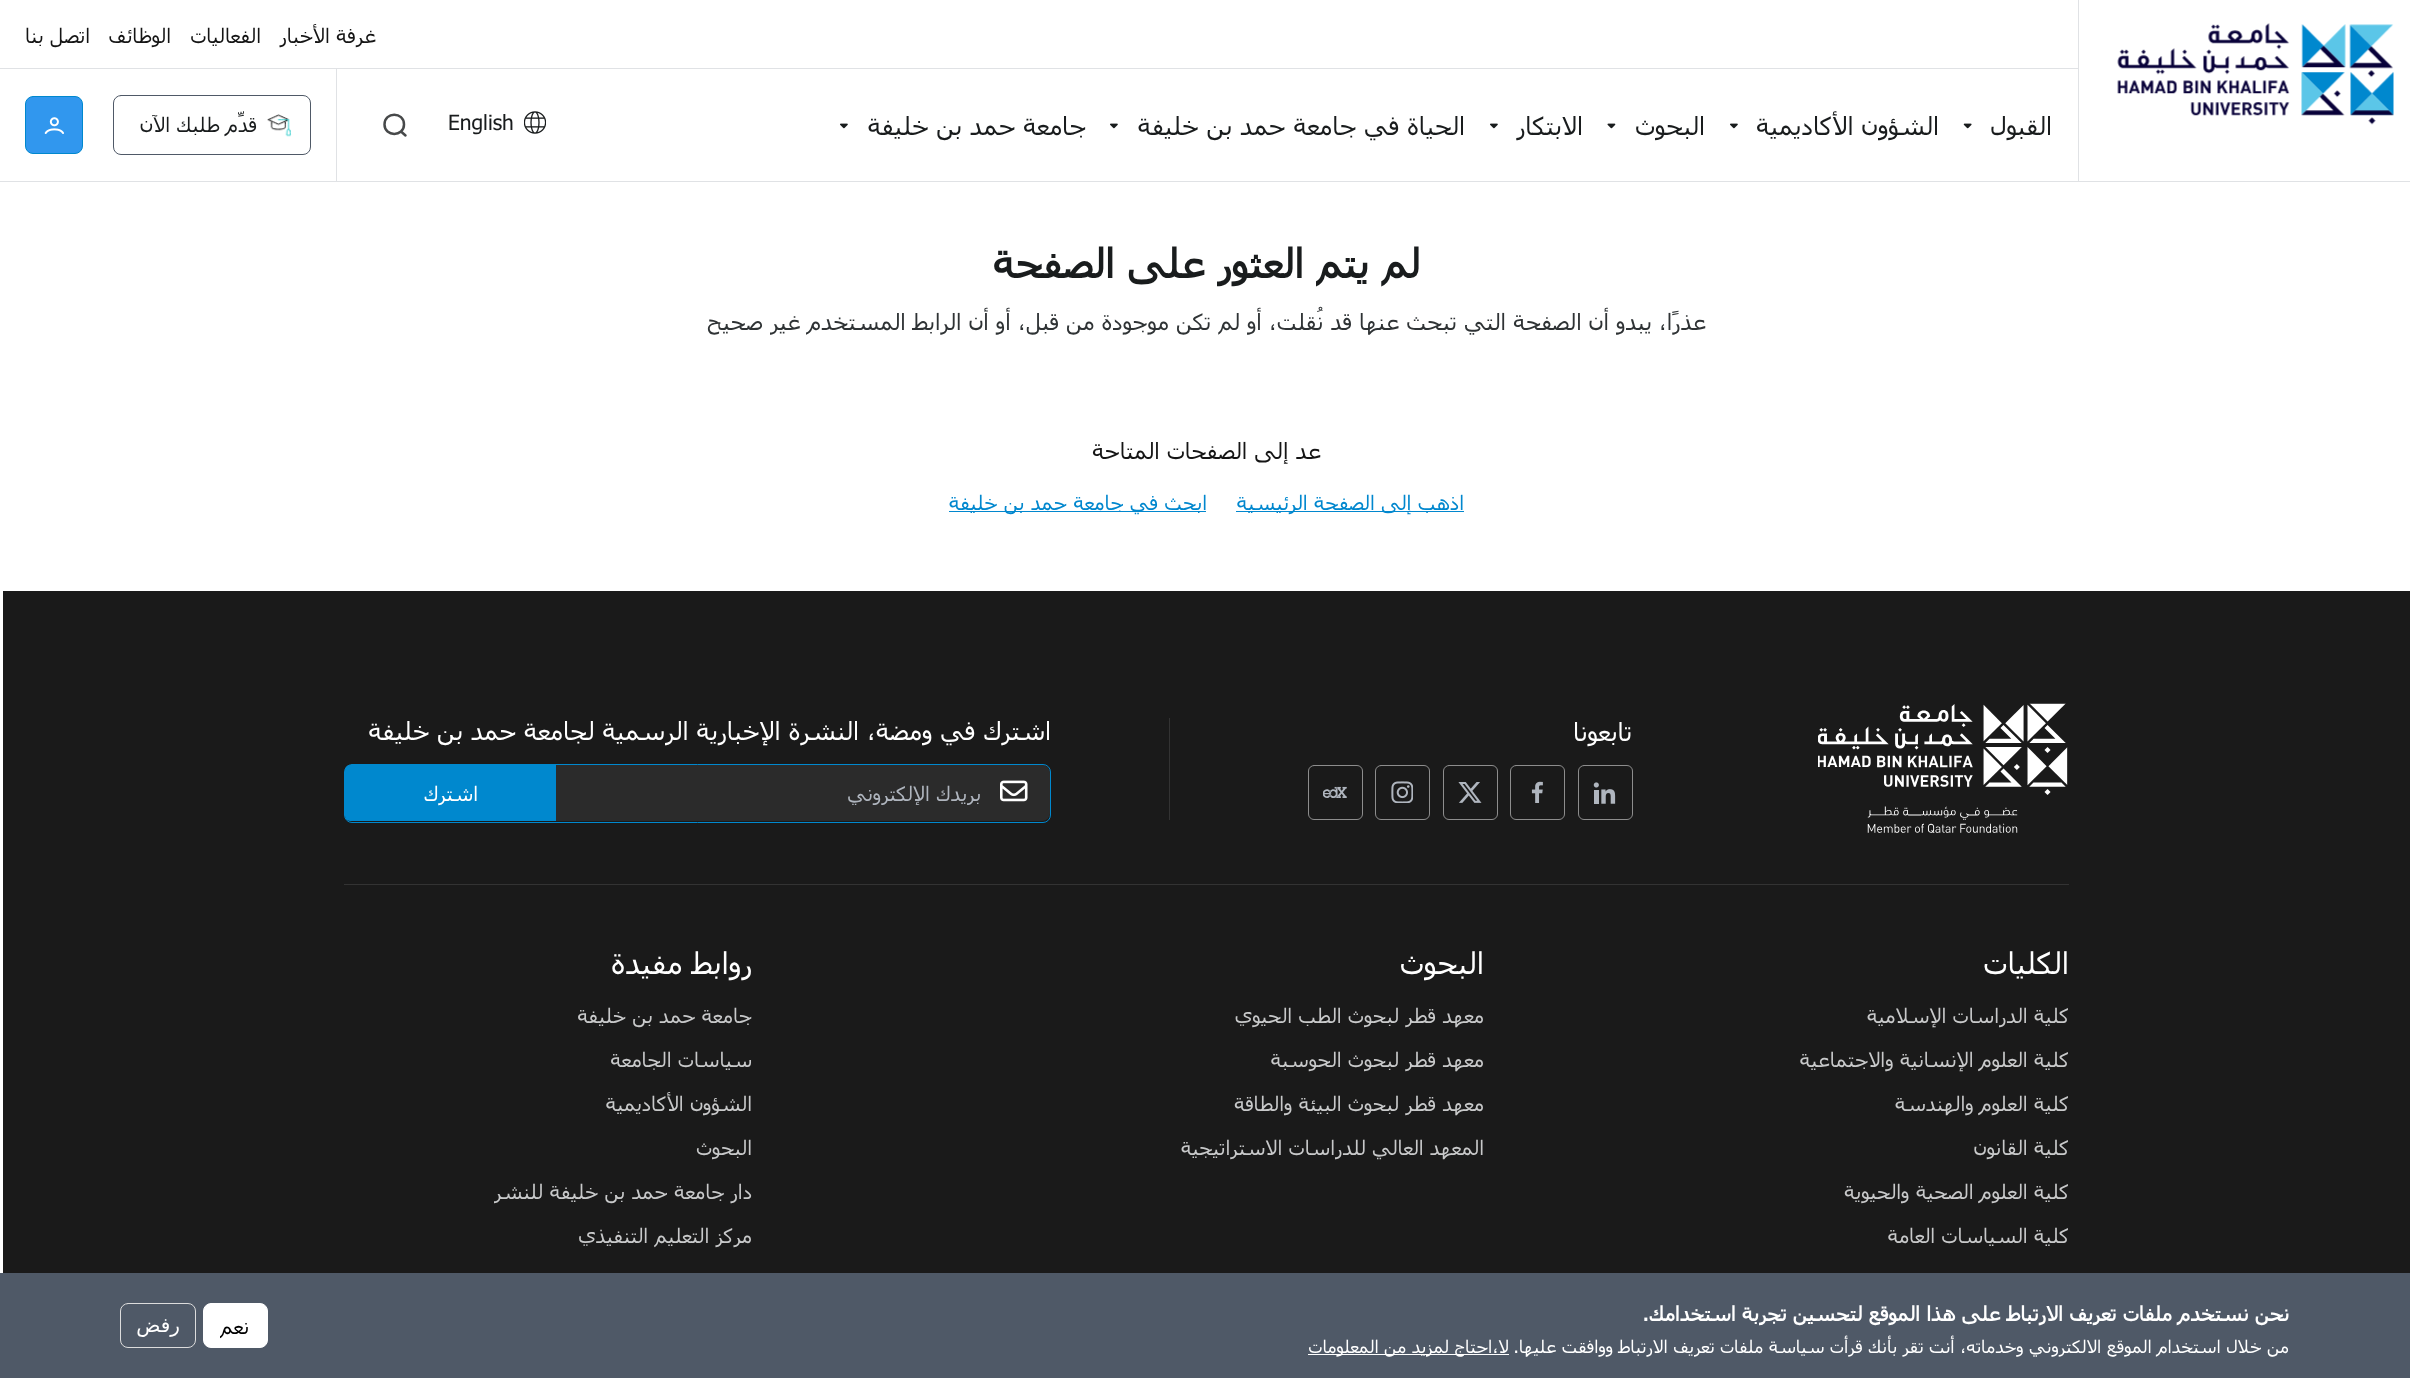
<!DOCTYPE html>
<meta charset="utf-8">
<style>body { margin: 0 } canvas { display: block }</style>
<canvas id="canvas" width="2410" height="1378"></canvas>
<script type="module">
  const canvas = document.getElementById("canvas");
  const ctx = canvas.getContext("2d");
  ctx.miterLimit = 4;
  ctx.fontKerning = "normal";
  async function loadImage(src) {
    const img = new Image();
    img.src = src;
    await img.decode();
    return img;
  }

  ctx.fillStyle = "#ffffff";
  ctx.fillRect(0, 0, 2410, 1378);
  ctx.fillStyle = "#e0e2e5";
  ctx.fillRect(0, 181, 2410, 1);
  ctx.fillRect(2078, 0, 1, 181);
  ctx.drawImage(await loadImage("img1.png"), 2117, 23, 277, 102);
  ctx.fillRect(0, 68, 2078, 1);
  ctx.direction = "rtl";
  ctx.font = "20px Tahoma";
  ctx.fillStyle = "#151515";
  ctx.fillText("غرفة الأخبار", 376, 43);
  ctx.fillText("الفعاليات", 261, 43);
  ctx.fillText("الوظائف", 171, 43);
  ctx.fillText("اتصل بنا", 90, 43);
  ctx.font = "25px Tahoma";
  ctx.fillStyle = "#191c1d";
  ctx.fillText("القبول", 2052, 135);
  ctx.drawImage(await loadImage("img2.png"), 1963, 123, 9, 6);
  ctx.fillText("الشؤون الأكاديمية", 1939, 135);
  ctx.drawImage(await loadImage("img3.png"), 1730, 123, 8, 6);
  ctx.fillText("البحوث", 1705, 135);
  ctx.drawImage(await loadImage("img4.png"), 1607, 123, 9, 6);
  ctx.fillText("الابتكار", 1583, 135);
  ctx.drawImage(await loadImage("img3.png"), 1490, 123, 8, 6);
  ctx.fillText("الحياة في جامعة حمد بن خليفة", 1465, 135);
  ctx.drawImage(await loadImage("img3.png"), 1110, 123, 8, 6);
  ctx.fillText("جامعة حمد بن خليفة", 1086, 135);
  ctx.drawImage(await loadImage("img3.png"), 840, 123, 8, 6);
  ctx.drawImage(await loadImage("img5.png"), 524, 111, 22, 23);
  ctx.direction = "ltr";
  ctx.font = "21px Tahoma";
  ctx.fillText("English", 448, 130);
  ctx.beginPath();
  ctx.moveTo(401, 131.5);
  ctx.lineTo(405.5, 135.5);
  ctx.moveTo(404, 124.5);
  ctx.bezierCurveTo(404, 137, 384.5, 137, 384.5, 124.5);
  ctx.bezierCurveTo(384.5, 111.5, 404, 111.5, 404, 124.5);
  ctx.closePath();
  ctx.strokeStyle = "#47494a";
  ctx.lineWidth = 2.5;
  ctx.lineCap = "round";
  ctx.stroke();
  ctx.fillStyle = "#e0e2e5";
  ctx.fillRect(336, 69, 1, 112);
  ctx.beginPath();
  ctx.roundRect(113.5, 95.5, 197, 59, 7.5);
  ctx.strokeStyle = "#4f5967";
  ctx.lineWidth = 1;
  ctx.stroke();
  ctx.drawImage(await loadImage("img6.png"), 267, 114, 25, 23);
  ctx.direction = "rtl";
  ctx.font = "20px Tahoma";
  ctx.fillStyle = "#191c1d";
  ctx.fillText("قدِّم طلبك الآن", 257, 132);
  ctx.fillStyle = "#3197ee";
  ctx.beginPath();
  ctx.roundRect(25.5, 96.5, 57, 57, 7.5);
  ctx.fill();
  ctx.strokeStyle = "#0088ce";
  ctx.stroke();
  ctx.drawImage(await loadImage("img7.png"), 44, 117, 20, 17);
  ctx.font = "bold 40px Tahoma";
  ctx.fillStyle = "#191c1d";
  ctx.fillText("لم يتم العثور على الصفحة", 1420, 278);
  ctx.font = "22.5px Tahoma";
  ctx.fillStyle = "#2f3335";
  ctx.fillText("عذرًا، يبدو أن الصفحة التي تبحث عنها قد نُقلت، أو لم تكن موجودة من قبل، أو أن الرابط المستخدم غير صحيح", 1706, 330);
  ctx.fillStyle = "#151515";
  ctx.fillText("عد إلى الصفحات المتاحة", 1321, 459);
  ctx.fillStyle = "#0187ce";
  ctx.fillRect(1236, 511, 228, 1);
  ctx.font = "20px Tahoma";
  ctx.fillText("اذهب إلى الصفحة الرئيسية", 1464, 510);
  ctx.fillRect(949, 511, 257, 1);
  ctx.fillText("ابحث في جامعة حمد بن خليفة", 1207, 510);
  ctx.fillStyle = "#1a1a1a";
  ctx.fillRect(3, 591, 2407, 682);
  ctx.fillStyle = "#333333";
  ctx.fillRect(344, 884, 1725, 1);
  ctx.drawImage(await loadImage("img8.png"), 1818, 703, 250, 130);
  ctx.fillRect(1169, 718, 1, 102);
  ctx.font = "25px Tahoma";
  ctx.fillStyle = "#ffffff";
  ctx.fillText("تابعونا", 1632, 741);
  ctx.beginPath();
  ctx.roundRect(1578.5, 765.5, 54, 54, 5.5);
  ctx.strokeStyle = "#8d8d8d";
  ctx.stroke();
  ctx.drawImage(await loadImage("img9.png"), 1593, 782, 23, 22);
  ctx.beginPath();
  ctx.roundRect(1510.5, 765.5, 54, 54, 5.5);
  ctx.stroke();
  ctx.drawImage(await loadImage("img10.png"), 1531, 781, 12, 22);
  ctx.beginPath();
  ctx.roundRect(1443.5, 765.5, 54, 54, 5.5);
  ctx.stroke();
  ctx.drawImage(await loadImage("img11.png"), 1458, 782, 24, 21);
  ctx.beginPath();
  ctx.roundRect(1375.5, 765.5, 54, 54, 5.5);
  ctx.stroke();
  ctx.drawImage(await loadImage("img12.png"), 1391, 781, 22, 22);
  ctx.beginPath();
  ctx.roundRect(1308.5, 765.5, 54, 54, 5.5);
  ctx.stroke();
  ctx.drawImage(await loadImage("img13.png"), 1323, 786, 24, 12);
  ctx.fillText("اشترك في ومضة، النشرة الإخبارية الرسمية لجامعة حمد بن خليفة", 1051, 740);
  ctx.beginPath();
  ctx.roundRect(344.5, 764.5, 706, 58, 7.5);
  ctx.strokeStyle = "#0088ce";
  ctx.stroke();
  ctx.fillStyle = "rgba(255, 255, 255, 0.08)";
  ctx.beginPath();
  ctx.roundRect(345, 765, 705, 56, 8);
  ctx.fill();
  ctx.drawImage(await loadImage("img14.png"), 1000, 780, 28, 22);
  ctx.save();
  ctx.beginPath();
  ctx.rect(360, 780, 621, 25);
  ctx.clip();
  ctx.font = "20px Tahoma";
  ctx.fillStyle = "#afb5be";
  ctx.fillText("بريدك الإلكتروني", 981, 801);
  ctx.restore();
  ctx.fillStyle = "#0088ce";
  ctx.beginPath();
  ctx.roundRect(345, 765, 211, 56, [5, 0, 0, 5]);
  ctx.fill();
  ctx.font = "20px Tahoma";
  ctx.fillStyle = "#ffffff";
  ctx.fillText("اشترك", 478, 801);
  ctx.font = "30px Tahoma";
  ctx.fillText("الكليات", 2069, 974);
  ctx.font = "20px Tahoma";
  ctx.fillStyle = "#c8c9ca";
  ctx.fillText("كلية الدراسات الإسلامية", 2069, 1023);
  ctx.fillText("كلية العلوم الإنسانية والاجتماعية", 2069, 1067);
  ctx.fillText("كلية العلوم والهندسة", 2069, 1111);
  ctx.fillText("كلية القانون", 2069, 1155);
  ctx.fillText("كلية العلوم الصحية والحيوية", 2069, 1199);
  ctx.fillText("كلية السياسات العامة", 2069, 1243);
  ctx.font = "30px Tahoma";
  ctx.fillStyle = "#ffffff";
  ctx.fillText("البحوث", 1484, 974);
  ctx.font = "20px Tahoma";
  ctx.fillStyle = "#c8c9ca";
  ctx.fillText("معهد قطر لبحوث الطب الحيوي", 1484, 1023);
  ctx.fillText("معهد قطر لبحوث الحوسبة", 1484, 1067);
  ctx.fillText("معهد قطر لبحوث البيئة والطاقة", 1484, 1111);
  ctx.fillText("المعهد العالي للدراسات الاستراتيجية", 1484, 1155);
  ctx.font = "30px Tahoma";
  ctx.fillStyle = "#ffffff";
  ctx.fillText("روابط مفيدة", 752, 974);
  ctx.font = "20px Tahoma";
  ctx.fillStyle = "#c8c9ca";
  ctx.fillText("جامعة حمد بن خليفة", 752, 1023);
  ctx.fillText("سياسات الجامعة", 752, 1067);
  ctx.fillText("الشؤون الأكاديمية", 752, 1111);
  ctx.fillText("البحوث", 752, 1155);
  ctx.fillText("دار جامعة حمد بن خليفة للنشر", 752, 1199);
  ctx.fillText("مركز التعليم التنفيذي", 752, 1243);
  ctx.fillStyle = "#4f5967";
  ctx.fillRect(0, 1273, 2410, 105);
  ctx.font = "bold 20px Tahoma";
  ctx.fillStyle = "#ffffff";
  ctx.fillText("نحن نستخدم ملفات تعريف الارتباط على هذا الموقع لتحسين تجربة استخدامك.", 2289, 1321);
  ctx.font = "17.5px Tahoma";
  ctx.fillText("من خلال استخدام الموقع الالكتروني وخدماته، أنت تقر بأنك قرأت سياسة ملفات تعريف الارتباط ووافقت عليها.", 2289, 1353);
  ctx.fillRect(1308, 1354, 201, 1);
  ctx.fillText("لا،احتاج لمزيد من المعلومات", 1509, 1353);
  ctx.beginPath();
  ctx.roundRect(203.5, 1303.5, 64, 44, 7.5);
  ctx.fill();
  ctx.strokeStyle = "#ffffff";
  ctx.stroke();
  ctx.font = "20px Tahoma";
  ctx.fillStyle = "#000000";
  ctx.fillText("نعم", 249, 1334);
  ctx.beginPath();
  ctx.roundRect(120.5, 1303.5, 75, 44, 7.5);
  ctx.strokeStyle = "#dcdcdc";
  ctx.stroke();
  ctx.font = "20px DejaVu Sans";
  ctx.fillStyle = "#ffffff";
  ctx.fillText("رفض", 180, 1332);
</script>
